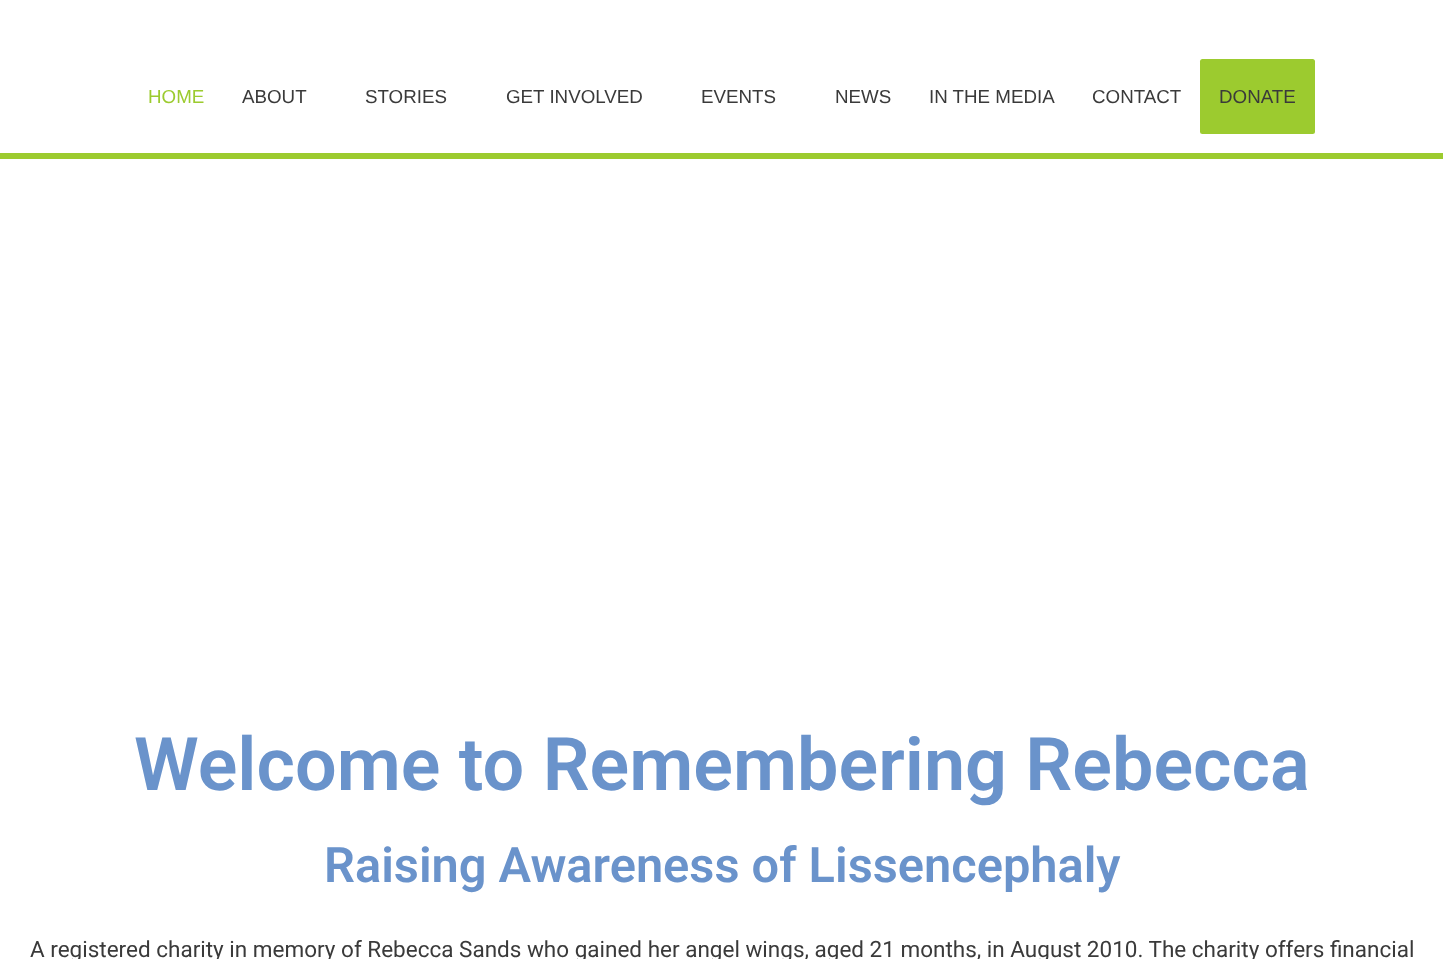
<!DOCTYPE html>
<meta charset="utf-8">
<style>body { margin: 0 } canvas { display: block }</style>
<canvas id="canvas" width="1443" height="959"></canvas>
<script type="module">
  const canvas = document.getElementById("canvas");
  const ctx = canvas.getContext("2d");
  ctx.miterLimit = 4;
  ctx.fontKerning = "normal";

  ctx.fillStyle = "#ffffff";
  ctx.fillRect(0, 0, 1443, 959);
  ctx.fillStyle = "#9ccb2f";
  ctx.fillRect(0, 153, 1443, 6);
  ctx.font = "18.75px Liberation Sans";
  ctx.fillText("HOME", 148, 103);
  ctx.fillStyle = "#3a3a3a";
  ctx.fillText("ABOUT", 242, 103);
  ctx.fillText("STORIES", 365, 103);
  ctx.fillText("GET INVOLVED", 506, 103);
  ctx.fillText("EVENTS", 701, 103);
  ctx.fillText("NEWS", 835, 103);
  ctx.fillText("IN THE MEDIA", 929, 103);
  ctx.fillText("CONTACT", 1092, 103);
  ctx.fillStyle = "#9ccb2f";
  ctx.beginPath();
  ctx.roundRect(1200, 59, 115, 75, 2.5);
  ctx.fill();
  ctx.fillStyle = "#3a3a3a";
  ctx.fillText("DONATE", 1219, 103);
  ctx.font = "600 73.75px Roboto";
  ctx.fillStyle = "#6a93cb";
  ctx.fillText("Welcome to Remembering Rebecca", 134, 790);
  ctx.font = "600 48.75px Roboto";
  ctx.fillText("Raising Awareness of Lissencephaly", 324, 882);
  ctx.font = "22.5px Roboto";
  ctx.fillStyle = "#3a3a3a";
  ctx.fillText("A registered charity in memory of Rebecca Sands who gained her angel wings, aged 21 months, in August 2010. The charity offers financial", 30, 957);
</script>
